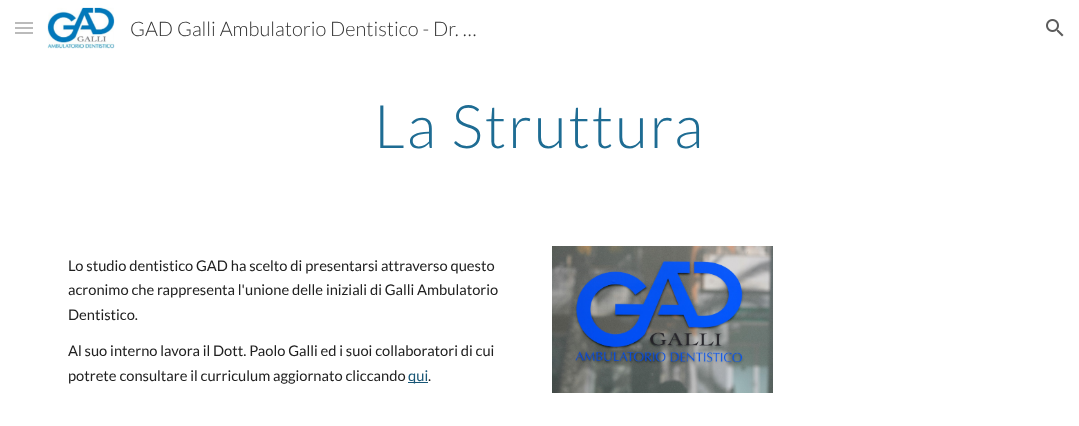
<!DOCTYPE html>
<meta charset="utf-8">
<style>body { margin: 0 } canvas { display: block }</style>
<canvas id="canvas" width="1079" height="426"></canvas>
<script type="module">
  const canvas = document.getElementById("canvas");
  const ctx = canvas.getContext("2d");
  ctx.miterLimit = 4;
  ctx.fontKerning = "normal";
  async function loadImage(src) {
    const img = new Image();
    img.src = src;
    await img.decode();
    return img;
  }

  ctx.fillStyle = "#ffffff";
  ctx.fillRect(0, 0, 1079, 426);
  ctx.fillStyle = "#bbbbbb";
  ctx.fillRect(15, 22, 18, 2);
  ctx.fillRect(15, 27, 18, 2);
  ctx.fillRect(15, 32, 18, 2);
  ctx.drawImage(await loadImage("img1.png"), 47, 7, 68, 42);
  ctx.font = "300 20px Lato";
  ctx.fillStyle = "#333333";
  ctx.fillText("GAD Galli Ambulatorio Dentistico - Dr. …", 130, 36);
  ctx.drawImage(await loadImage("img2.png"), 1046, 19, 18, 18);
  ctx.letterSpacing = "2px";
  ctx.font = "300 60px Lato";
  ctx.fillStyle = "#1e6c93";
  ctx.fillText("La Struttura", 374, 148);
  ctx.letterSpacing = "0px";
  ctx.font = "14.7px Lato";
  ctx.fillStyle = "#212121";
  ctx.fillText("Lo studio dentistico GAD ha scelto di presentarsi attraverso questo", 68, 271);
  ctx.fillText("acronimo che rappresenta l'unione delle iniziali di Galli Ambulatorio", 68, 295);
  ctx.fillText("Dentistico.", 68, 320);
  ctx.fillText("Al suo interno lavora il Dott. Paolo Galli ed i suoi collaboratori di cui", 68, 356);
  ctx.fillText("potrete consultare il curriculum aggiornato cliccando", 68, 381);
  ctx.fillStyle = "#185676";
  ctx.fillRect(408, 382, 20, 1);
  ctx.fillText("qui", 408, 381);
  ctx.fillStyle = "#212121";
  ctx.fillText(".", 428, 381);
  ctx.drawImage(await loadImage("img3.png"), 552, 246, 221, 147);
</script>
